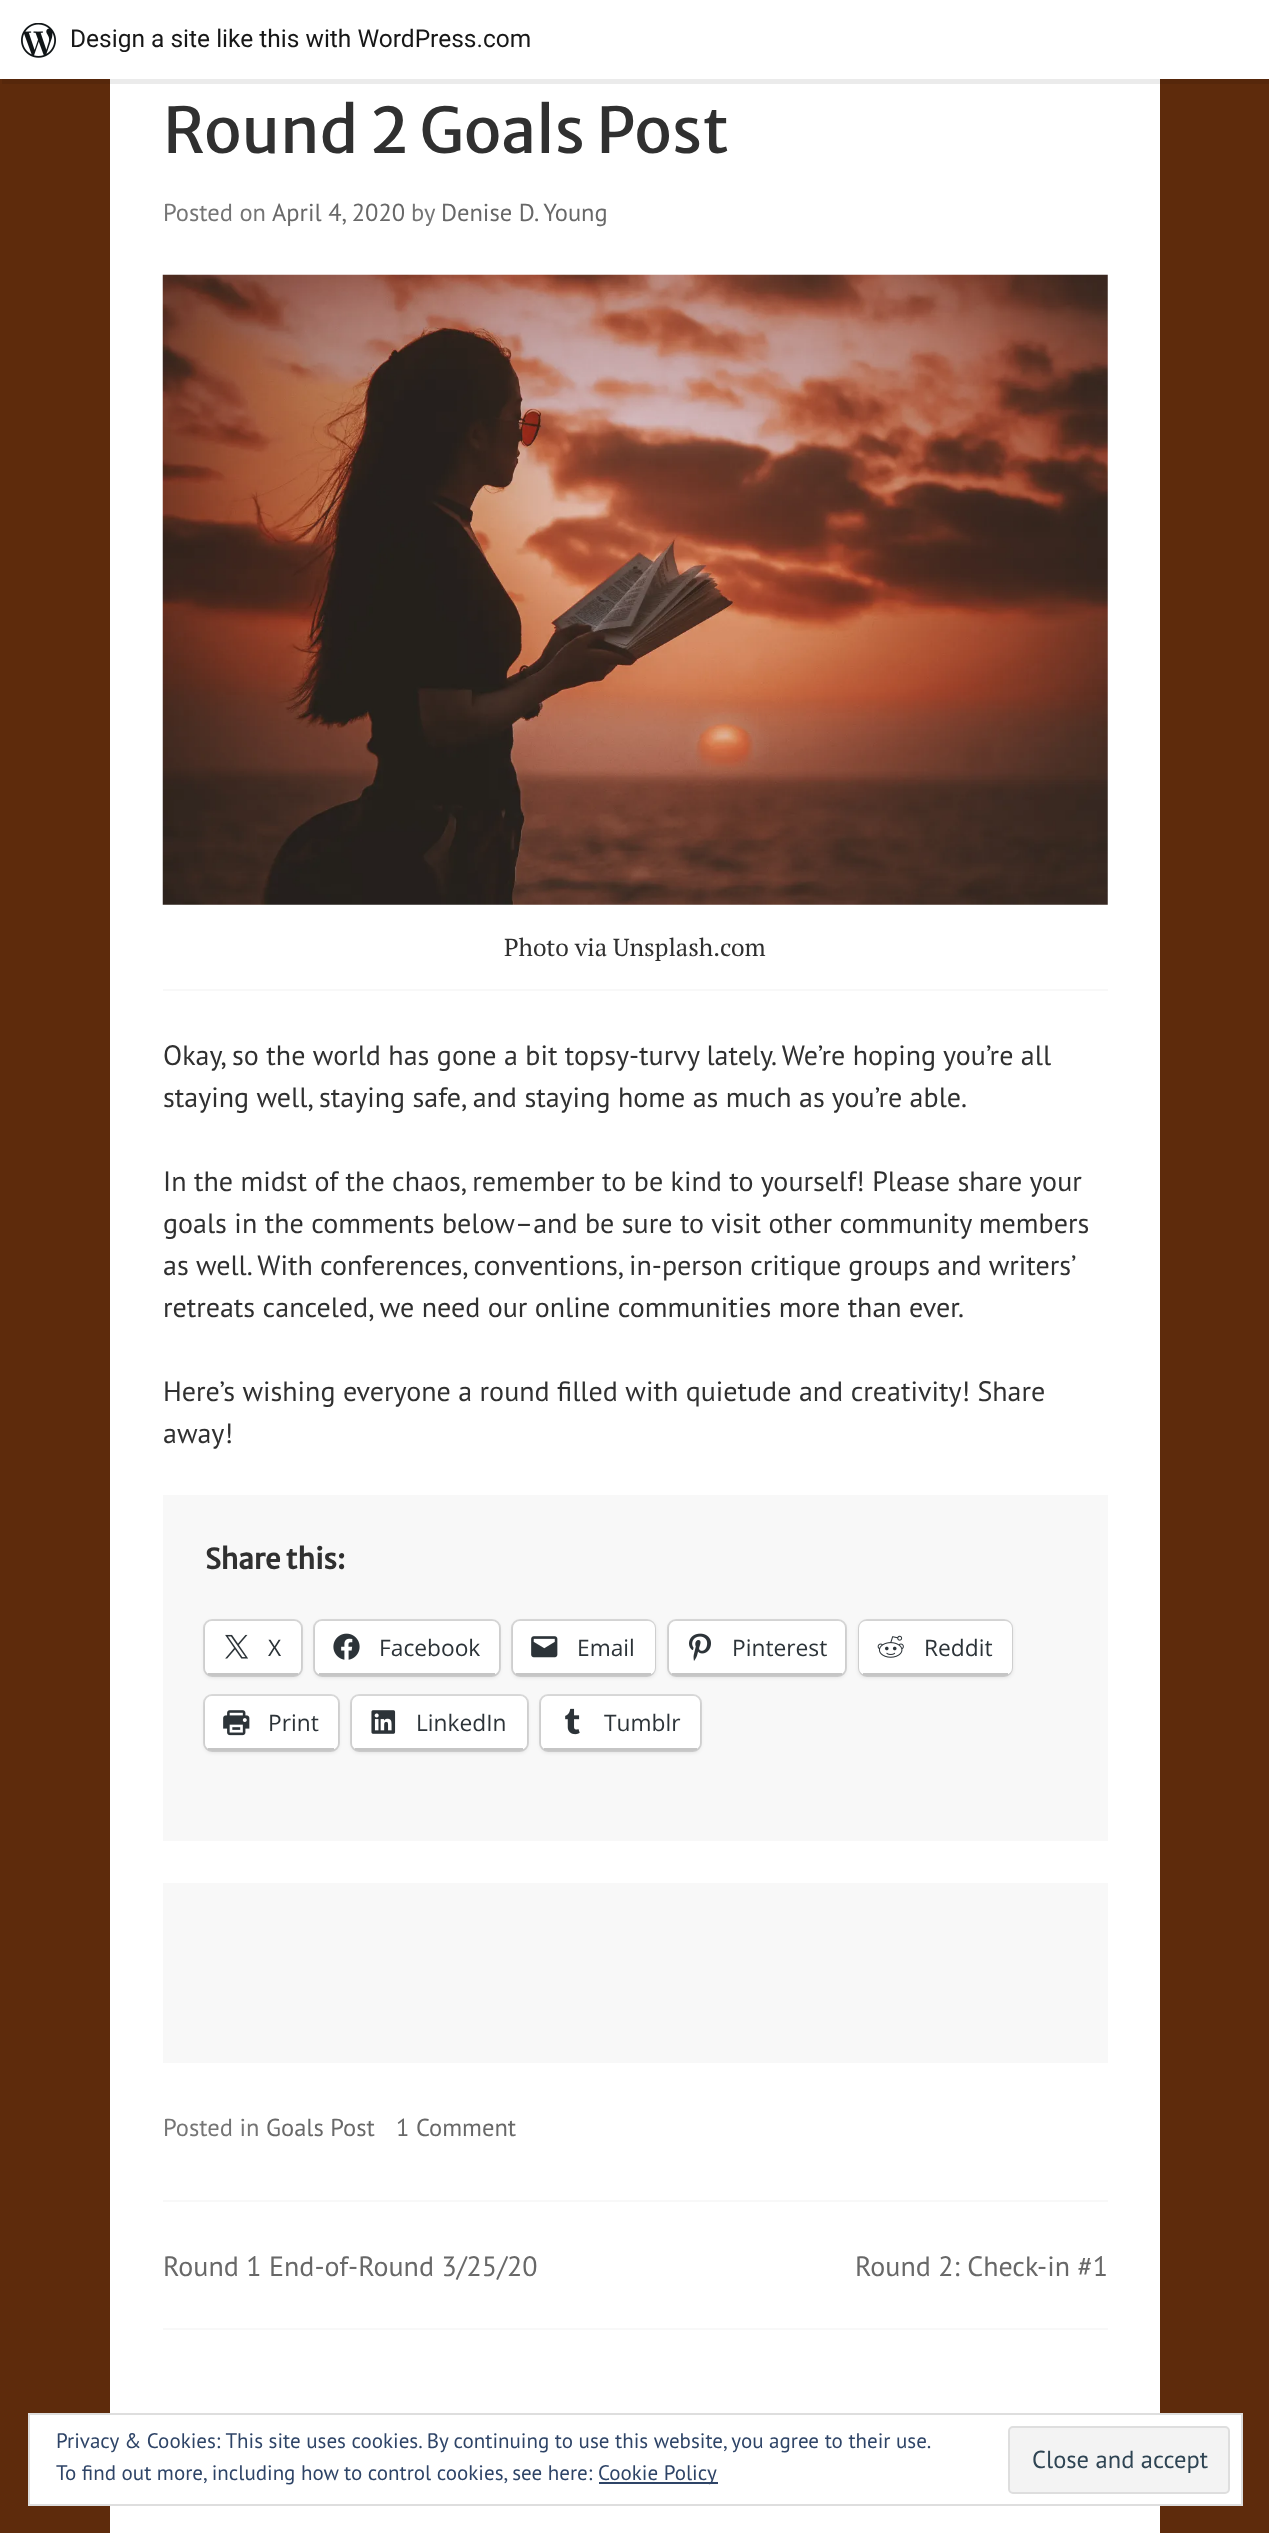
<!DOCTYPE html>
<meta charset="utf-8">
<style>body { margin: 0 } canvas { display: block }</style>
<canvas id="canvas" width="1269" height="2533"></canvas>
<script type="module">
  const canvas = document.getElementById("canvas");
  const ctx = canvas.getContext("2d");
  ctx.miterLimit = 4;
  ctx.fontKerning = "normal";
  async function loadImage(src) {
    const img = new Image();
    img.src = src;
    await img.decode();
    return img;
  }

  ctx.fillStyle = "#5e2b0c";
  ctx.fillRect(0, 0, 1269, 2533);
  ctx.fillStyle = "#ffffff";
  ctx.fillRect(110, 79, 1050, 2454);
  ctx.fillStyle = "rgba(0, 0, 0, 0.08)";
  ctx.beginPath();
  ctx.moveTo(2, 79);
  ctx.lineTo(2, 84);
  ctx.lineTo(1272, 84);
  ctx.lineTo(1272, 5);
  ctx.lineTo(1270, 5);
  ctx.lineTo(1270, 79);
  ctx.closePath();
  ctx.fill();
  ctx.fillStyle = "#ffffff";
  ctx.fillRect(0, 0, 1269, 79);
  ctx.drawImage(await loadImage("img1.png"), 21, 23, 35, 35);
  ctx.font = "24.5px Roboto";
  ctx.fillStyle = "#171717";
  ctx.fillText("Design a site like this with WordPress.com", 70, 47);
  ctx.font = "63px Merriweather Sans";
  ctx.fillStyle = "#303030";
  ctx.fillText("Round 2 Goals Post", 163, 153);
  ctx.font = "24.5px PT Sans";
  ctx.fillStyle = "#757575";
  ctx.fillText("Posted on", 163, 221);
  ctx.fillStyle = "#686868";
  ctx.fillText("April 4, 2020", 272, 221);
  ctx.fillStyle = "#757575";
  ctx.fillText("by", 411, 221);
  ctx.fillStyle = "#686868";
  ctx.fillText("Denise D. Young", 441, 221);
  ctx.drawImage(await loadImage("img2.png"), 162, 274, 946, 631);
  ctx.fillStyle = "#f8f8f8";
  ctx.fillRect(163, 989, 945, 2);
  ctx.font = "24.5px PT Serif";
  ctx.fillStyle = "#303030";
  ctx.fillText("Photo via Unsplash.com", 504, 956);
  ctx.font = "28px PT Sans";
  ctx.fillText("Okay, so the world has gone a bit topsy-turvy lately. We’re hoping you’re all", 163, 1065);
  ctx.fillText("staying well, staying safe, and staying home as much as you’re able.", 163, 1107);
  ctx.fillText("In the midst of the chaos, remember to be kind to yourself! Please share your", 163, 1191);
  ctx.fillText("goals in the comments below–and be sure to visit other community members", 163, 1233);
  ctx.wordSpacing = "-0.25px";
  ctx.fillText("as well. With conferences, conventions, in-person critique groups and writers’", 163, 1275);
  ctx.wordSpacing = "0px";
  ctx.fillText("retreats canceled, we need our online communities more than ever.", 163, 1317);
  ctx.fillText("Here’s wishing everyone a round filled with quietude and creativity! Share", 163, 1401);
  ctx.fillText("away!", 163, 1443);
  ctx.fillStyle = "#f8f8f8";
  ctx.fillRect(163, 1495, 945, 346);
  ctx.font = "bold 28px Merriweather Sans";
  ctx.fillStyle = "#303030";
  ctx.fillText("Share this:", 205, 1569);
  ctx.beginPath();
  ctx.roundRect(204, 1620, 98, 56, 8);
  ctx.strokeStyle = "#dadada";
  ctx.lineWidth = 2;
  ctx.stroke();
  ctx.fillStyle = "rgba(0, 0, 0, 0.12)";
  ctx.filter = "blur(2px)";
  ctx.beginPath();
  ctx.roundRect(205, 1622, 96, 55, 7);
  ctx.fill();
  ctx.filter = "none";
  ctx.fillStyle = "#ffffff";
  ctx.beginPath();
  ctx.roundRect(205, 1621, 96, 54, 7);
  ctx.fill();
  ctx.fillStyle = "#c5c5c5";
  ctx.fillRect(208, 1673, 90, 2);
  ctx.drawImage(await loadImage("img3.png"), 225, 1634, 23, 25);
  ctx.font = "22.75px Open Sans";
  ctx.fillStyle = "#2c3338";
  ctx.fillText("X", 268, 1656);
  ctx.beginPath();
  ctx.roundRect(314, 1620, 186, 56, 8);
  ctx.stroke();
  ctx.fillStyle = "rgba(0, 0, 0, 0.12)";
  ctx.filter = "blur(2px)";
  ctx.beginPath();
  ctx.roundRect(315, 1622, 184, 55, 7);
  ctx.fill();
  ctx.filter = "none";
  ctx.fillStyle = "#ffffff";
  ctx.beginPath();
  ctx.roundRect(315, 1621, 184, 54, 7);
  ctx.fill();
  ctx.fillStyle = "#c5c5c5";
  ctx.fillRect(319, 1673, 176, 2);
  ctx.drawImage(await loadImage("img4.png"), 333, 1633, 27, 27);
  ctx.fillStyle = "#2c3338";
  ctx.fillText("Facebook", 379, 1656);
  ctx.beginPath();
  ctx.roundRect(512, 1620, 143, 56, 8);
  ctx.stroke();
  ctx.fillStyle = "rgba(0, 0, 0, 0.12)";
  ctx.filter = "blur(2px)";
  ctx.beginPath();
  ctx.roundRect(513, 1622, 142, 55, 7);
  ctx.fill();
  ctx.filter = "none";
  ctx.fillStyle = "#ffffff";
  ctx.beginPath();
  ctx.roundRect(513, 1621, 142, 54, 7);
  ctx.fill();
  ctx.fillStyle = "#c5c5c5";
  ctx.fillRect(516, 1673, 135, 2);
  ctx.drawImage(await loadImage("img5.png"), 531, 1636, 27, 22);
  ctx.fillStyle = "#2c3338";
  ctx.fillText("Email", 577, 1656);
  ctx.beginPath();
  ctx.roundRect(668, 1620, 178, 56, 8);
  ctx.stroke();
  ctx.fillStyle = "rgba(0, 0, 0, 0.12)";
  ctx.filter = "blur(2px)";
  ctx.beginPath();
  ctx.roundRect(669, 1622, 176, 55, 7);
  ctx.fill();
  ctx.filter = "none";
  ctx.fillStyle = "#ffffff";
  ctx.beginPath();
  ctx.roundRect(669, 1621, 176, 54, 7);
  ctx.fill();
  ctx.fillStyle = "#c5c5c5";
  ctx.fillRect(672, 1673, 170, 2);
  ctx.drawImage(await loadImage("img6.png"), 689, 1633, 22, 28);
  ctx.fillStyle = "#2c3338";
  ctx.fillText("Pinterest", 732, 1656);
  ctx.beginPath();
  ctx.roundRect(859, 1620, 153, 56, 8);
  ctx.stroke();
  ctx.fillStyle = "rgba(0, 0, 0, 0.12)";
  ctx.filter = "blur(2px)";
  ctx.beginPath();
  ctx.roundRect(859, 1622, 153, 55, 7);
  ctx.fill();
  ctx.filter = "none";
  ctx.fillStyle = "#ffffff";
  ctx.beginPath();
  ctx.roundRect(859, 1621, 153, 54, 7);
  ctx.fill();
  ctx.fillStyle = "#c5c5c5";
  ctx.fillRect(863, 1673, 145, 2);
  ctx.drawImage(await loadImage("img7.png"), 877, 1635, 27, 23);
  ctx.fillStyle = "#2c3338";
  ctx.fillText("Reddit", 924, 1656);
  ctx.beginPath();
  ctx.roundRect(204, 1695, 135, 56, 8);
  ctx.stroke();
  ctx.fillStyle = "rgba(0, 0, 0, 0.12)";
  ctx.filter = "blur(2px)";
  ctx.beginPath();
  ctx.roundRect(205, 1698, 133, 54, 7);
  ctx.fill();
  ctx.filter = "none";
  ctx.fillStyle = "#ffffff";
  ctx.beginPath();
  ctx.roundRect(205, 1696, 133, 54, 7);
  ctx.fill();
  ctx.fillStyle = "#c5c5c5";
  ctx.fillRect(208, 1748, 126, 2);
  ctx.drawImage(await loadImage("img8.png"), 223, 1710, 27, 26);
  ctx.fillStyle = "#2c3338";
  ctx.fillText("Print", 268, 1731);
  ctx.beginPath();
  ctx.roundRect(351, 1695, 177, 56, 8);
  ctx.stroke();
  ctx.fillStyle = "rgba(0, 0, 0, 0.12)";
  ctx.filter = "blur(2px)";
  ctx.beginPath();
  ctx.roundRect(352, 1698, 175, 54, 7);
  ctx.fill();
  ctx.filter = "none";
  ctx.fillStyle = "#ffffff";
  ctx.beginPath();
  ctx.roundRect(352, 1696, 175, 54, 7);
  ctx.fill();
  ctx.fillStyle = "#c5c5c5";
  ctx.fillRect(355, 1748, 168, 2);
  ctx.drawImage(await loadImage("img9.png"), 371, 1710, 25, 24);
  ctx.fillStyle = "#2c3338";
  ctx.fillText("LinkedIn", 416, 1731);
  ctx.beginPath();
  ctx.roundRect(540, 1695, 161, 56, 8);
  ctx.stroke();
  ctx.fillStyle = "rgba(0, 0, 0, 0.12)";
  ctx.filter = "blur(2px)";
  ctx.beginPath();
  ctx.roundRect(541, 1698, 159, 54, 7);
  ctx.fill();
  ctx.filter = "none";
  ctx.fillStyle = "#ffffff";
  ctx.beginPath();
  ctx.roundRect(541, 1696, 159, 54, 7);
  ctx.fill();
  ctx.fillStyle = "#c5c5c5";
  ctx.fillRect(544, 1748, 153, 2);
  ctx.drawImage(await loadImage("img10.png"), 565, 1708, 15, 27);
  ctx.fillStyle = "#2c3338";
  ctx.fillText("Tumblr", 604, 1731);
  ctx.fillStyle = "#f8f8f8";
  ctx.fillRect(163, 1883, 945, 180);
  ctx.font = "24.5px PT Sans";
  ctx.fillStyle = "#757575";
  ctx.fillText("Posted in", 163, 2136);
  ctx.fillStyle = "#686868";
  ctx.fillText("Goals Post", 266, 2136);
  ctx.fillText("1 Comment", 396, 2136);
  ctx.fillStyle = "#f8f8f8";
  ctx.fillRect(163, 2200, 945, 2);
  ctx.fillRect(163, 2328, 945, 2);
  ctx.font = "28px PT Sans";
  ctx.fillStyle = "#686868";
  ctx.fillText("Round 1 End-of-Round 3/25/20", 163, 2276);
  ctx.fillText("Round 2: Check-in #1", 855, 2276);
  ctx.fillStyle = "#ffffff";
  ctx.beginPath();
  ctx.rect(29, 2414, 1213, 91);
  ctx.fill();
  ctx.strokeStyle = "#dedede";
  ctx.stroke();
  ctx.font = "21px PT Sans";
  ctx.fillStyle = "#2e4467";
  ctx.fillText("Privacy & Cookies: This site uses cookies. By continuing to use this website, you agree to their use.", 56, 2448);
  ctx.fillStyle = "#f3f3f3";
  ctx.beginPath();
  ctx.roundRect(1009, 2427, 220, 66, 4);
  ctx.fill();
  ctx.stroke();
  ctx.font = "24.5px PT Sans";
  ctx.fillStyle = "#2e4453";
  ctx.fillText("Close and accept", 1032, 2468);
  ctx.font = "21px PT Sans";
  ctx.fillStyle = "#2e4467";
  ctx.fillText("To find out more, including how to control cookies, see here:", 56, 2480);
  ctx.fillRect(599, 2482, 119, 2);
  ctx.fillText("Cookie Policy", 598, 2480);
</script>
